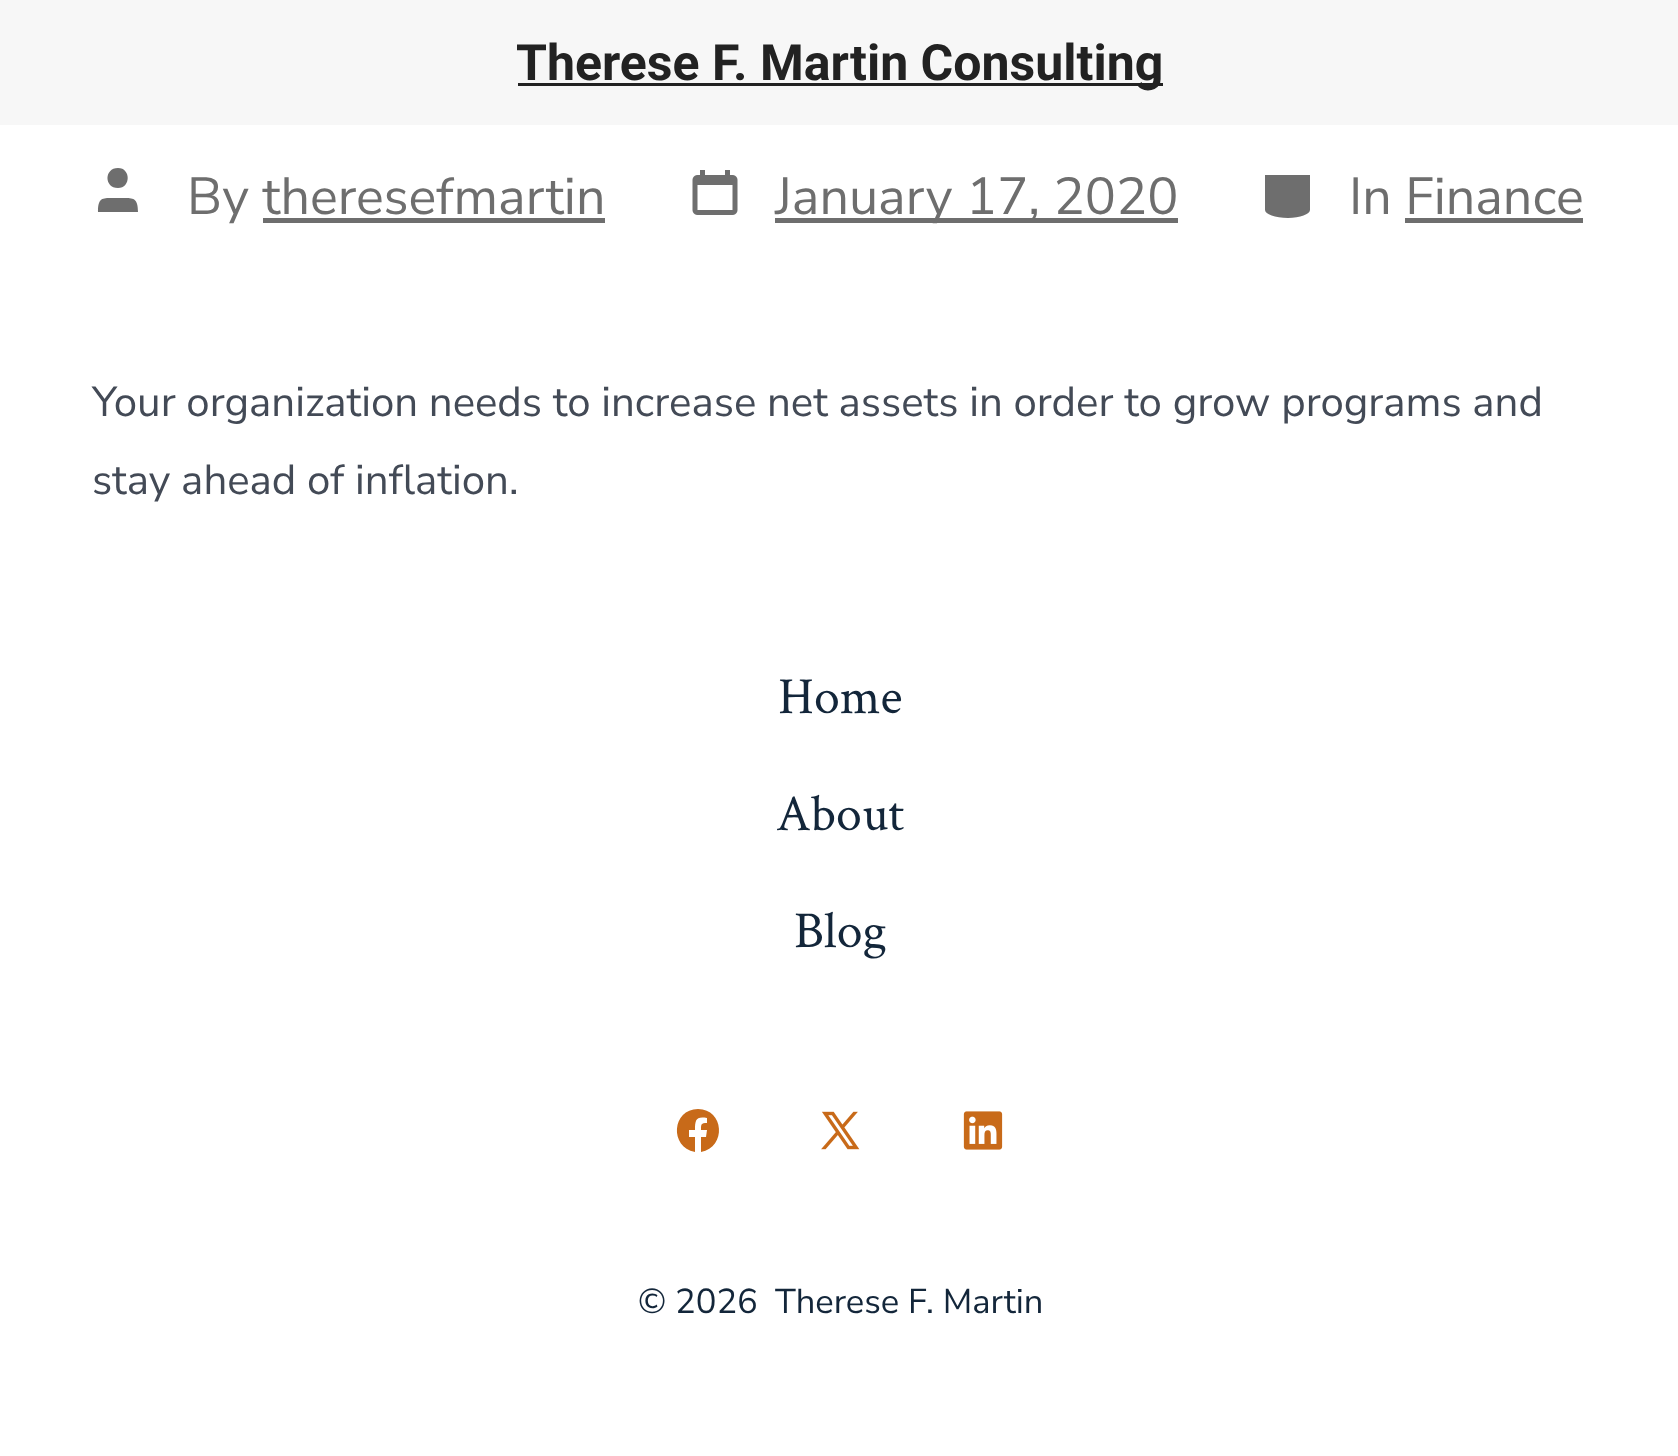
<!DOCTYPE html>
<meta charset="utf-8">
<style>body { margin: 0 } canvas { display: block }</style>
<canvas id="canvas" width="1678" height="1456"></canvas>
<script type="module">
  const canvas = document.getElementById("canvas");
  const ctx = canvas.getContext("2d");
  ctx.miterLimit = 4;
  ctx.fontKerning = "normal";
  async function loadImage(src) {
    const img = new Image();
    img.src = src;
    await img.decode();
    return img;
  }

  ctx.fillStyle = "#ffffff";
  ctx.fillRect(0, 0, 1678, 1456);
  ctx.fillStyle = "#f7f7f7";
  ctx.fillRect(0, 0, 1678, 125);
  ctx.fillStyle = "#222222";
  ctx.fillRect(518, 83, 645, 3);
  ctx.font = "bold 50px Roboto";
  ctx.fillText("Therese F. Martin Consulting", 516, 80);
  ctx.fillStyle = "#6e6e6e";
  ctx.beginPath();
  ctx.moveTo(138, 212);
  ctx.lineTo(98, 212);
  ctx.bezierCurveTo(98, 196, 103, 198, 118, 198);
  ctx.bezierCurveTo(132, 198, 138, 196, 138, 212);
  ctx.closePath();
  ctx.moveTo(118, 188);
  ctx.bezierCurveTo(104, 188, 104, 168, 118, 168);
  ctx.bezierCurveTo(131, 168, 131, 188, 118, 188);
  ctx.closePath();
  ctx.fill();
  ctx.font = "52px Nunito Sans";
  ctx.fillText("By theresefmartin", 187, 214);
  ctx.fillRect(263, 218, 342, 5);
  ctx.drawImage(await loadImage("img1.png"), 692, 170, 46, 45);
  ctx.fillRect(775, 218, 403, 5);
  ctx.fillText("January 17, 2020", 775, 214);
  ctx.beginPath();
  ctx.moveTo(1265, 175);
  ctx.lineTo(1265, 210);
  ctx.bezierCurveTo(1265, 214, 1275, 218, 1288, 218);
  ctx.bezierCurveTo(1300, 218, 1310, 214, 1310, 210);
  ctx.lineTo(1310, 175);
  ctx.fill();
  ctx.fillText("In Finance", 1349, 214);
  ctx.fillRect(1405, 218, 178, 5);
  ctx.wordSpacing = "-0.1px";
  ctx.font = "42px Nunito Sans";
  ctx.fillStyle = "#434a56";
  ctx.fillText("Your organization needs to increase net assets in order to grow programs and", 92, 416);
  ctx.wordSpacing = "0px";
  ctx.fillText("stay ahead of inflation.", 92, 494);
  ctx.font = "52px Crimson Text";
  ctx.fillStyle = "#13263a";
  ctx.fillText("Home", 778, 713);
  ctx.fillText("About", 776, 830);
  ctx.fillText("Blog", 794, 947);
  ctx.fillStyle = "#c86a19";
  ctx.beginPath();
  ctx.moveTo(698, 1109);
  ctx.bezierCurveTo(672, 1109, 669, 1147, 695, 1152);
  ctx.lineTo(695, 1137);
  ctx.lineTo(689, 1137);
  ctx.lineTo(689, 1130);
  ctx.lineTo(695, 1130);
  ctx.bezierCurveTo(695, 1120, 696, 1116, 707, 1118);
  ctx.lineTo(707, 1123);
  ctx.bezierCurveTo(701, 1123, 701, 1124, 701, 1130);
  ctx.lineTo(707, 1130);
  ctx.lineTo(706, 1137);
  ctx.lineTo(701, 1137);
  ctx.lineTo(701, 1152);
  ctx.bezierCurveTo(727, 1147, 724, 1109, 698, 1109);
  ctx.closePath();
  ctx.fill();
  ctx.drawImage(await loadImage("img2.png"), 821, 1111, 39, 39);
  ctx.drawImage(await loadImage("img3.png"), 963, 1111, 40, 39);
  ctx.font = "34.5px Nunito Sans";
  ctx.fillStyle = "#13263a";
  ctx.fillText("© 2026", 638, 1313);
  ctx.fillText("Therese F. Martin", 775, 1313);
</script>
